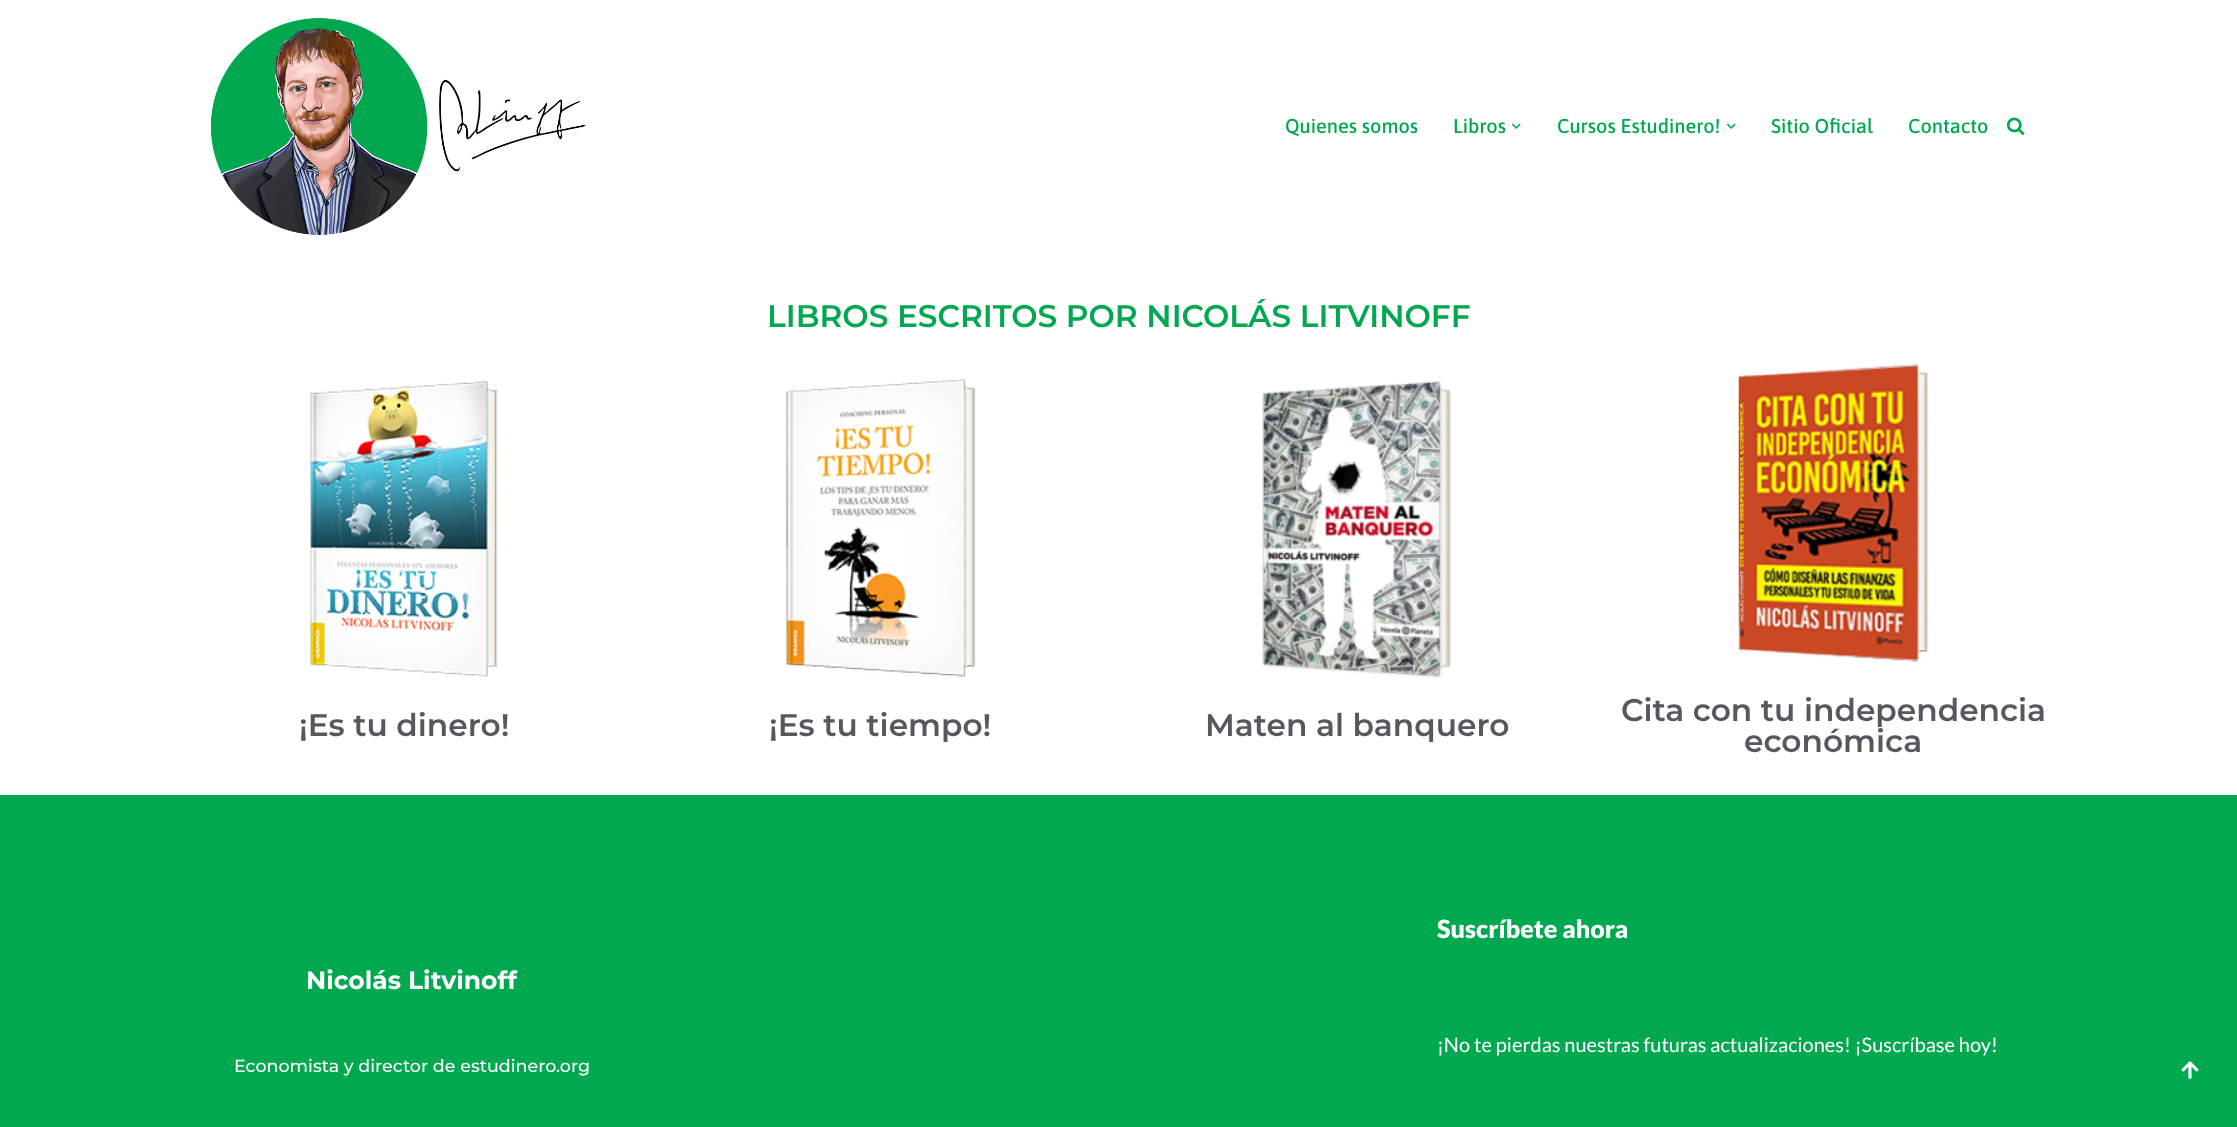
<!DOCTYPE html>
<meta charset="utf-8">
<style>body { margin: 0 } canvas { display: block }</style>
<canvas id="canvas" width="2237" height="1127"></canvas>
<script type="module">
  const canvas = document.getElementById("canvas");
  const ctx = canvas.getContext("2d");
  ctx.miterLimit = 4;
  ctx.fontKerning = "normal";
  async function loadImage(src) {
    const img = new Image();
    img.src = src;
    await img.decode();
    return img;
  }

  ctx.fillStyle = "#ffffff";
  ctx.fillRect(0, 0, 2237, 1127);
  ctx.drawImage(await loadImage("img1.png"), 208, 16, 378, 220);
  ctx.font = "500 20px Asap";
  ctx.fillStyle = "#01a850";
  ctx.fillText("Quienes somos", 1285, 133);
  ctx.fillText("Libros", 1453, 133);
  ctx.drawImage(await loadImage("img2.png"), 1512, 123, 9, 6);
  ctx.fillText("Cursos Estudinero!", 1557, 133);
  ctx.drawImage(await loadImage("img2.png"), 1727, 123, 9, 6);
  ctx.fillText("Sitio Oficial", 1771, 133);
  ctx.fillText("Contacto", 1908, 133);
  ctx.drawImage(await loadImage("img3.png"), 2006, 117, 19, 18);
  ctx.font = "600 31.25px Montserrat";
  ctx.fillText("LIBROS ESCRITOS POR NICOLÁS LITVINOFF", 767, 327);
  ctx.drawImage(await loadImage("img4.png"), 310, 380, 188, 297);
  ctx.fillStyle = "#54595f";
  ctx.fillText("¡Es tu dinero!", 299, 736);
  ctx.drawImage(await loadImage("img5.png"), 786, 379, 190, 299);
  ctx.fillText("¡Es tu tiempo!", 769, 736);
  ctx.drawImage(await loadImage("img6.png"), 1262, 381, 189, 297);
  ctx.fillText("Maten al banquero", 1205, 736);
  ctx.drawImage(await loadImage("img7.png"), 1738, 364, 191, 298);
  ctx.fillText("Cita con tu independencia", 1621, 721);
  ctx.fillText("económica", 1744, 752);
  ctx.fillStyle = "#00a94f";
  ctx.fillRect(0, 795, 2237, 332);
  ctx.font = "bold 25px Montserrat";
  ctx.fillStyle = "#ffffff";
  ctx.fillText("Nicolás Litvinoff", 306, 989);
  ctx.font = "500 17.5px Montserrat";
  ctx.fillText("Economista y director de estudinero.org", 234, 1072);
  ctx.font = "900 25px Lato";
  ctx.fillText("Suscríbete ahora", 1437, 938);
  ctx.font = "20px Lato";
  ctx.fillText("¡No te pierdas nuestras futuras actualizaciones! ¡Suscríbase hoy!", 1437, 1052);
  ctx.drawImage(await loadImage("img8.png"), 2181, 1061, 18, 18);
</script>
